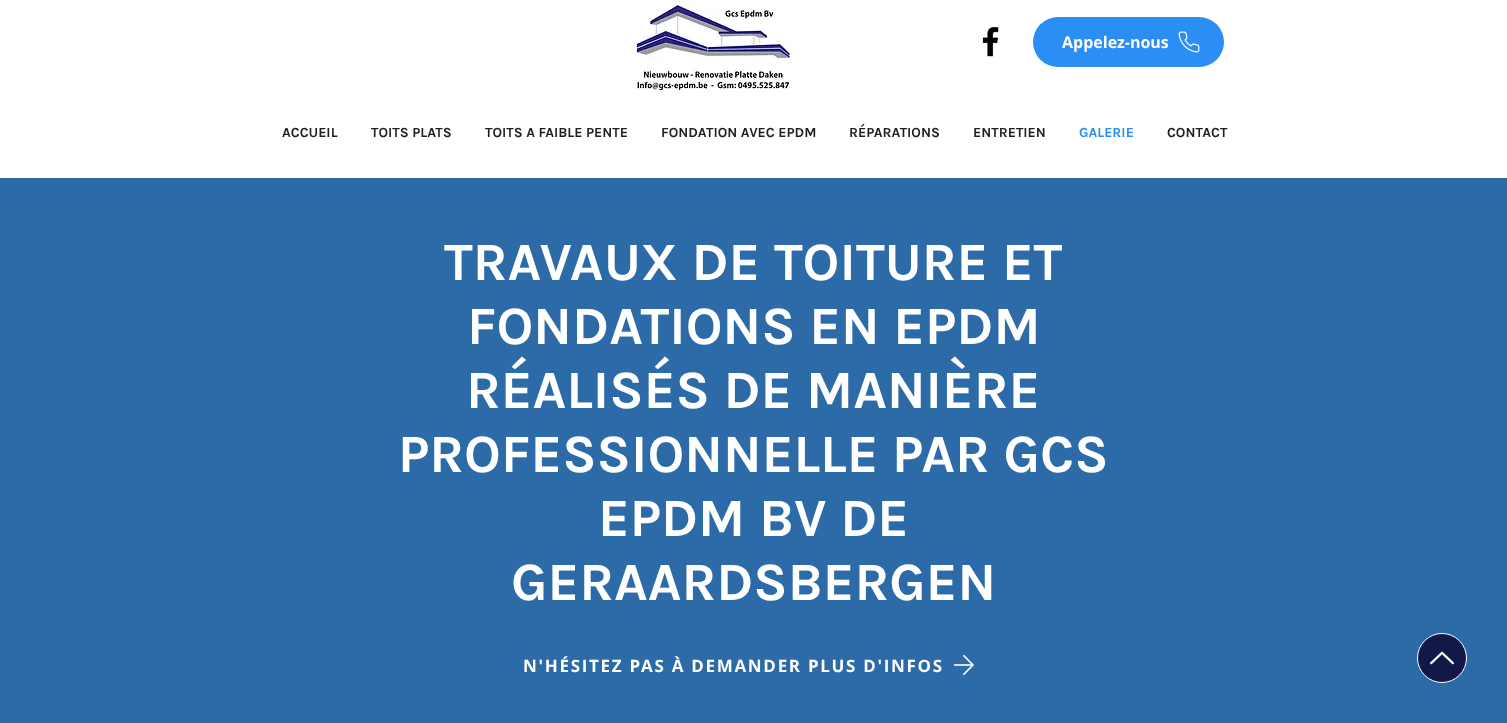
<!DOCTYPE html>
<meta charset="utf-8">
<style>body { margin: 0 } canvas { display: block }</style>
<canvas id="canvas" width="1507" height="723"></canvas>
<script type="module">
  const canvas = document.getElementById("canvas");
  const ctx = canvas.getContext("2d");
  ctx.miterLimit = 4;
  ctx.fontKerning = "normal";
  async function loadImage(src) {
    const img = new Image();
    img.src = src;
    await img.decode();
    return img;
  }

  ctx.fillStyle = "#ffffff";
  ctx.fillRect(0, 0, 1507, 723);
  ctx.drawImage(await loadImage("img1.png"), 636, 3, 160, 90);
  ctx.drawImage(await loadImage("img2.png"), 982, 27, 17, 30);
  ctx.fillStyle = "#2a8ef4";
  ctx.beginPath();
  ctx.roundRect(1033, 17, 191, 50, 25);
  ctx.fill();
  ctx.font = "bold 16px Open Sans";
  ctx.fillStyle = "#ffffff";
  ctx.fillText("Appelez-nous", 1062, 48);
  ctx.drawImage(await loadImage("img3.png"), 1178, 31, 22, 22);
  ctx.font = "bold 14px Karla";
  ctx.fillStyle = "#1f1f1f";
  ctx.fillText("ACCUEIL", 282, 137);
  ctx.fillText("TOITS PLATS", 371, 137);
  ctx.fillText("TOITS A FAIBLE PENTE", 485, 137);
  ctx.fillText("FONDATION AVEC EPDM", 661, 137);
  ctx.fillText("RÉPARATIONS", 849, 137);
  ctx.fillText("ENTRETIEN", 973, 137);
  ctx.fillStyle = "#2a8ef4";
  ctx.fillText("GALERIE", 1079, 137);
  ctx.fillStyle = "#1f1f1f";
  ctx.fillText("CONTACT", 1167, 137);
  ctx.fillStyle = "#2c6aa8";
  ctx.fillRect(0, 178, 1507, 545);
  ctx.font = "bold 54px Karla";
  ctx.fillStyle = "#ffffff";
  ctx.fillText("TRAVAUX DE TOITURE ET", 444, 280);
  ctx.fillText("FONDATIONS EN EPDM", 467, 344);
  ctx.fillText("RÉALISÉS DE MANIÈRE", 466, 408);
  ctx.fillText("PROFESSIONNELLE PAR GCS", 398, 472);
  ctx.fillText("EPDM BV DE", 598, 536);
  ctx.fillText("GERAARDSBERGEN", 511, 600);
  ctx.letterSpacing = "1.7px";
  ctx.font = "bold 17px Open Sans";
  ctx.fillText("N'HÉSITEZ PAS À DEMANDER PLUS D'INFOS", 523, 672);
  ctx.drawImage(await loadImage("img4.png"), 953, 654, 21, 22);
  ctx.fillStyle = "#131946";
  ctx.beginPath();
  ctx.arc(1442, 658, 24.5, 0, Math.PI * 2);
  ctx.fill();
  ctx.strokeStyle = "#ffffff";
  ctx.stroke();
  ctx.drawImage(await loadImage("img5.png"), 1430, 651, 24, 14);
</script>
